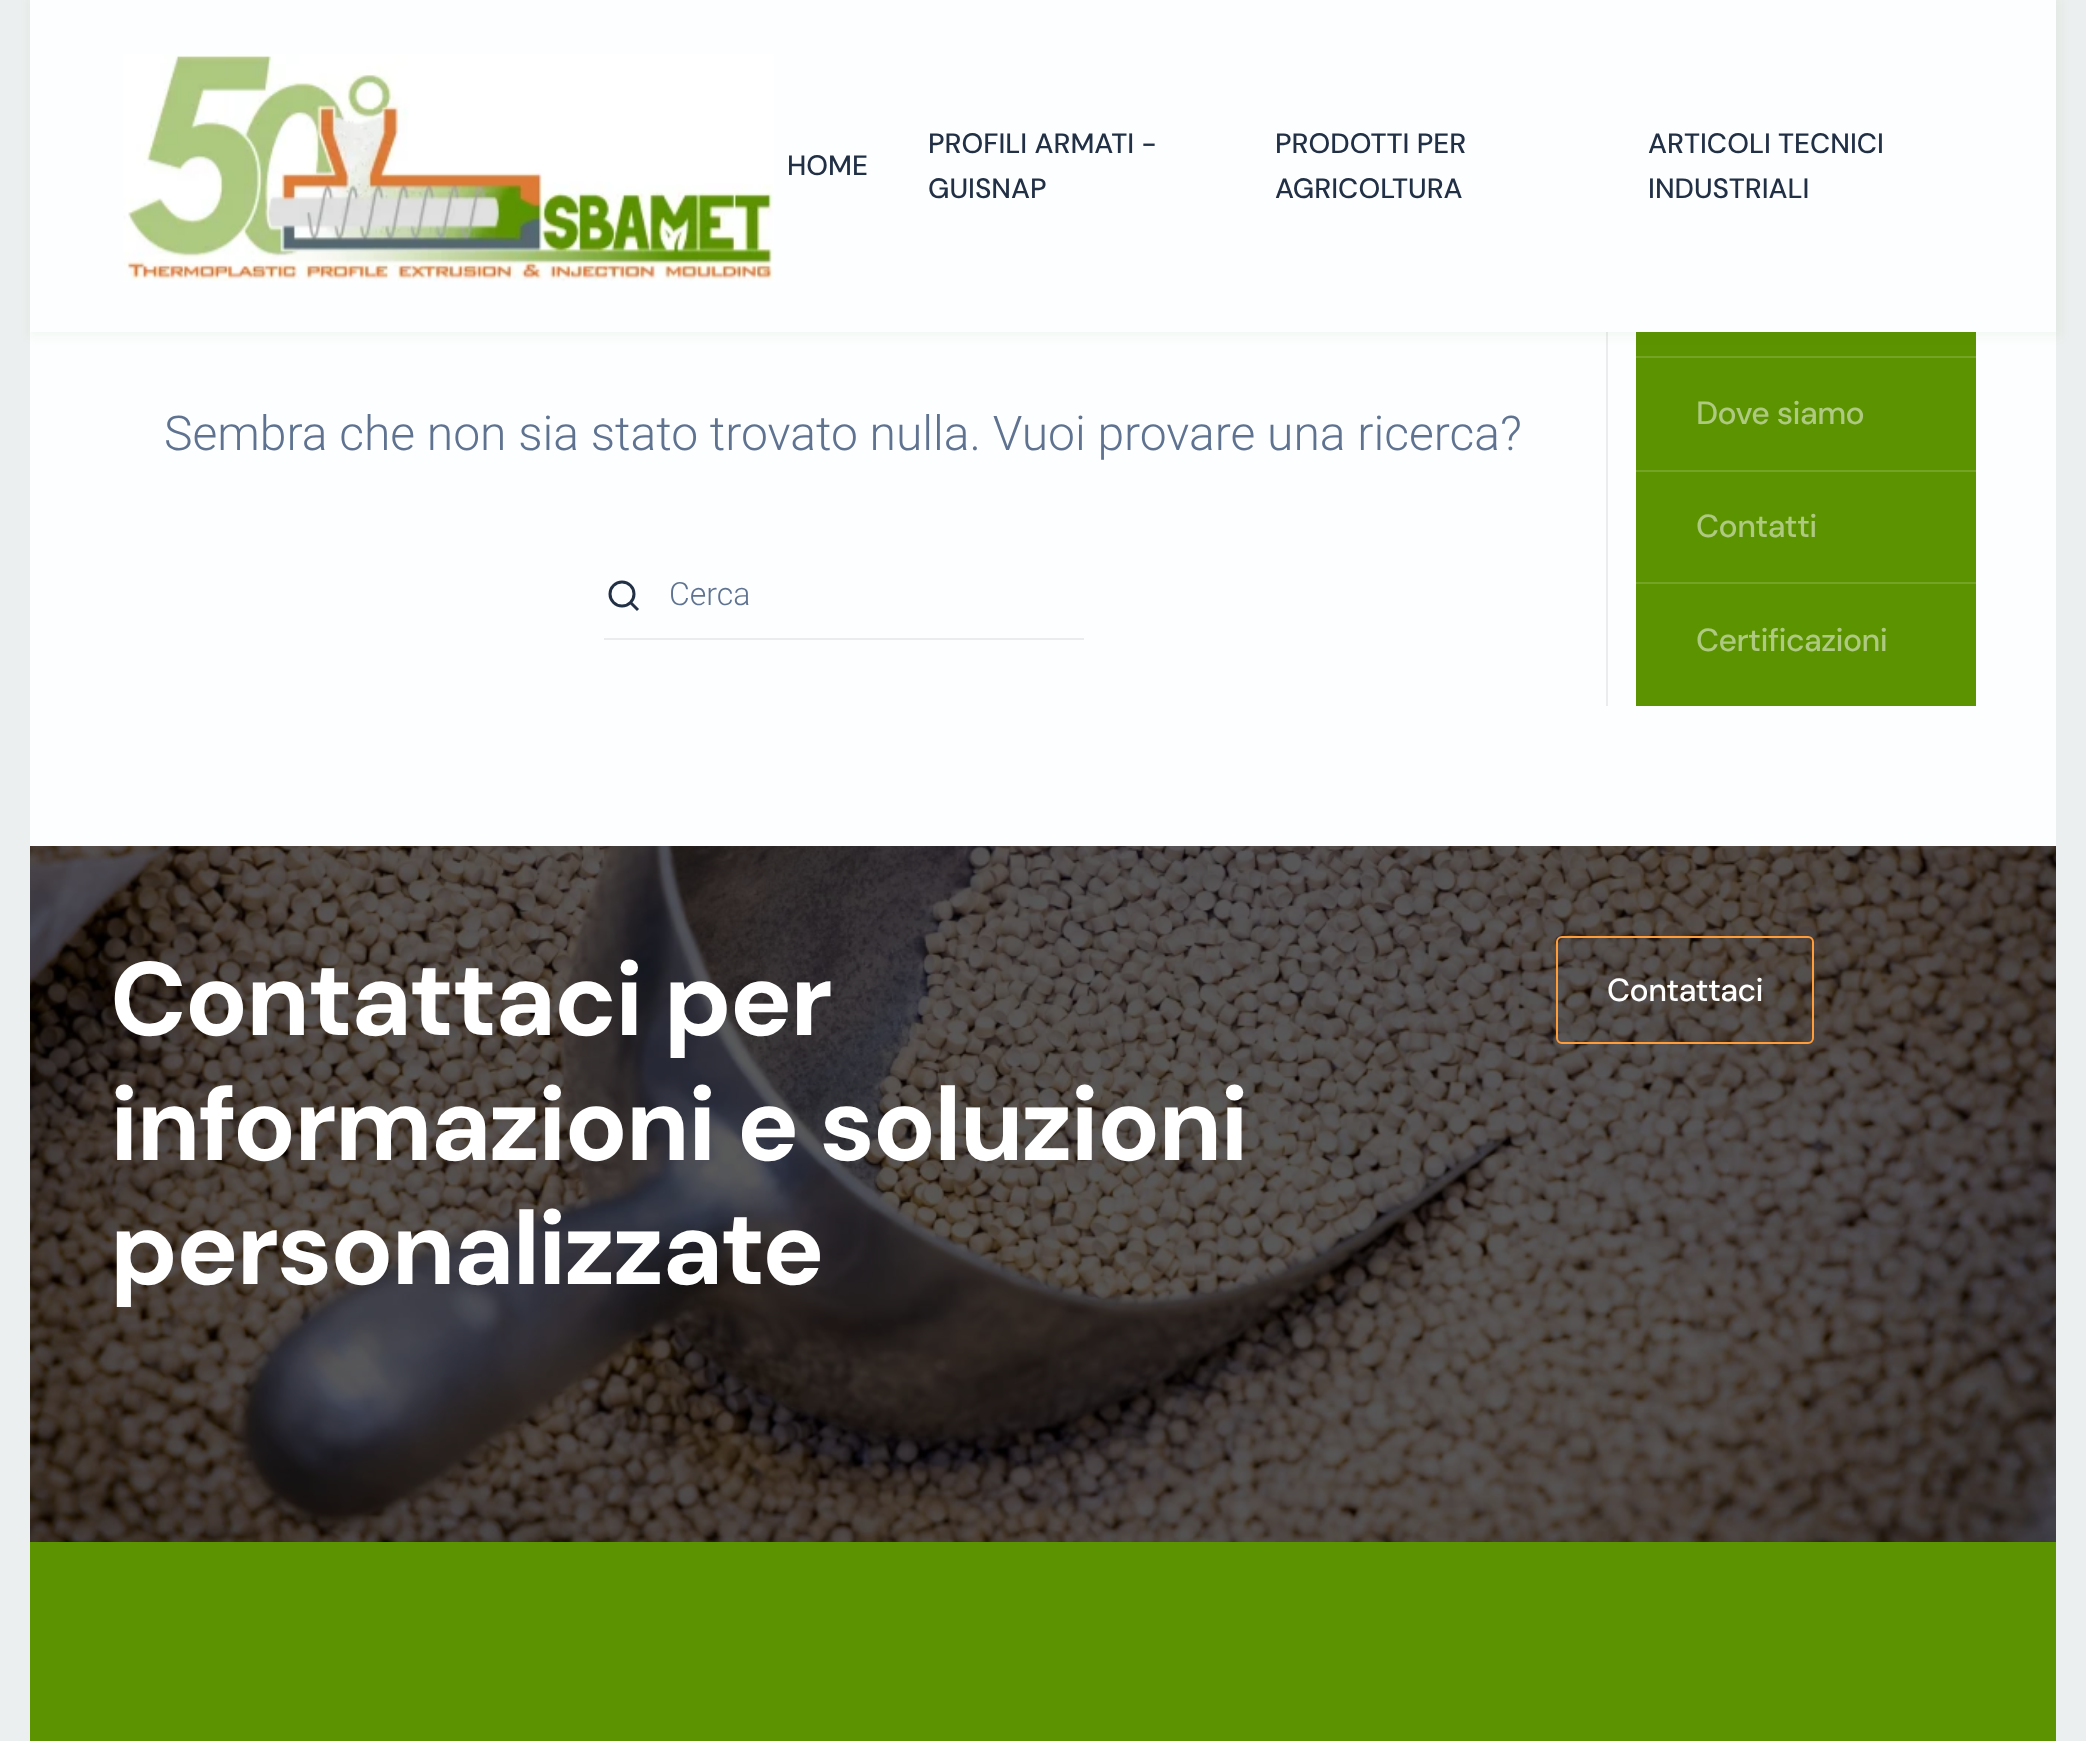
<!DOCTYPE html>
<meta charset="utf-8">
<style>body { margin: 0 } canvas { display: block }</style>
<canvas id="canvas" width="2086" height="1741"></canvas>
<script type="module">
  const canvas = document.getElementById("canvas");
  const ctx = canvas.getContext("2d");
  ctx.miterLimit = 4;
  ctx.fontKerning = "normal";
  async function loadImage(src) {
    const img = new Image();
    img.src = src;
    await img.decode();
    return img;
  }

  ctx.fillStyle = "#fdfeff";
  ctx.fillRect(0, 0, 2086, 1741);
  ctx.fillStyle = "#ecefef";
  ctx.fillRect(2056, 0, 30, 1741);
  ctx.fillRect(0, 0, 30, 1741);
  ctx.fillStyle = "#ebeced";
  ctx.fillRect(1606, 332, 2, 374);
  ctx.fillStyle = "#5c9300";
  ctx.fillRect(1636, 332, 340, 374);
  ctx.fillStyle = "rgba(26, 117, 5, 0.04)";
  ctx.filter = "blur(5px)";
  ctx.beginPath();
  ctx.rect(28, -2, 2034, 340);
  ctx.fill();
  ctx.filter = "none";
  ctx.fillStyle = "#fdfeff";
  ctx.fillRect(30, 0, 2026, 332);
  ctx.drawImage(await loadImage("img1.png"), 123, 54, 651, 228);
  ctx.font = "500 28px DM Sans";
  ctx.fillStyle = "#223046";
  ctx.fillText("HOME", 787, 175);
  ctx.fillText("PROFILI ARMATI -", 928, 153);
  ctx.fillText("GUISNAP", 928, 198);
  ctx.fillText("PRODOTTI PER", 1275, 153);
  ctx.fillText("AGRICOLTURA", 1275, 198);
  ctx.fillText("ARTICOLI TECNICI", 1648, 153);
  ctx.fillText("INDUSTRIALI", 1648, 198);
  ctx.font = "300 48px Roboto";
  ctx.fillStyle = "#5f7391";
  ctx.fillText("Sembra che non sia stato trovato nulla. Vuoi provare una ricerca?", 164, 450);
  ctx.beginPath();
  ctx.arc(622, 594, 12, 0, Math.PI * 2);
  ctx.strokeStyle = "#223046";
  ctx.lineWidth = 3;
  ctx.stroke();
  ctx.beginPath();
  ctx.moveTo(630, 602);
  ctx.lineTo(638, 610);
  ctx.closePath();
  ctx.stroke();
  ctx.fillStyle = "#ebeced";
  ctx.fillRect(604, 638, 480, 2);
  ctx.font = "300 32px Roboto";
  ctx.fillStyle = "#5f7391";
  ctx.fillText("Cerca", 669, 605);
  ctx.fillStyle = "#74a326";
  ctx.fillRect(1636, 356, 340, 2);
  ctx.letterSpacing = "-0.6px";
  ctx.font = "500 32px DM Sans";
  ctx.fillStyle = "#aec980";
  ctx.fillText("Dove siamo", 1696, 424);
  ctx.fillStyle = "#74a326";
  ctx.fillRect(1636, 470, 340, 2);
  ctx.fillStyle = "#aec980";
  ctx.fillText("Contatti", 1696, 537);
  ctx.fillStyle = "#74a326";
  ctx.fillRect(1636, 582, 340, 2);
  ctx.fillStyle = "#aec980";
  ctx.fillText("Certificazioni", 1696, 651);
  ctx.drawImage(await loadImage("img2.png"), 30, 846, 2026, 696);
  ctx.letterSpacing = "-2.1px";
  ctx.font = "bold 104px DM Sans";
  ctx.fillStyle = "#ffffff";
  ctx.fillText("Contattaci per", 110, 1035);
  ctx.fillText("informazioni e soluzioni", 110, 1160);
  ctx.fillText("personalizzate", 110, 1284);
  ctx.beginPath();
  ctx.roundRect(1557, 937, 256, 106, 5);
  ctx.strokeStyle = "#ff9d3b";
  ctx.lineWidth = 2;
  ctx.stroke();
  ctx.letterSpacing = "-0.6px";
  ctx.font = "500 32px DM Sans";
  ctx.fillText("Contattaci", 1607, 1001);
  ctx.fillStyle = "#5c9300";
  ctx.fillRect(30, 1542, 2026, 199);
</script>
